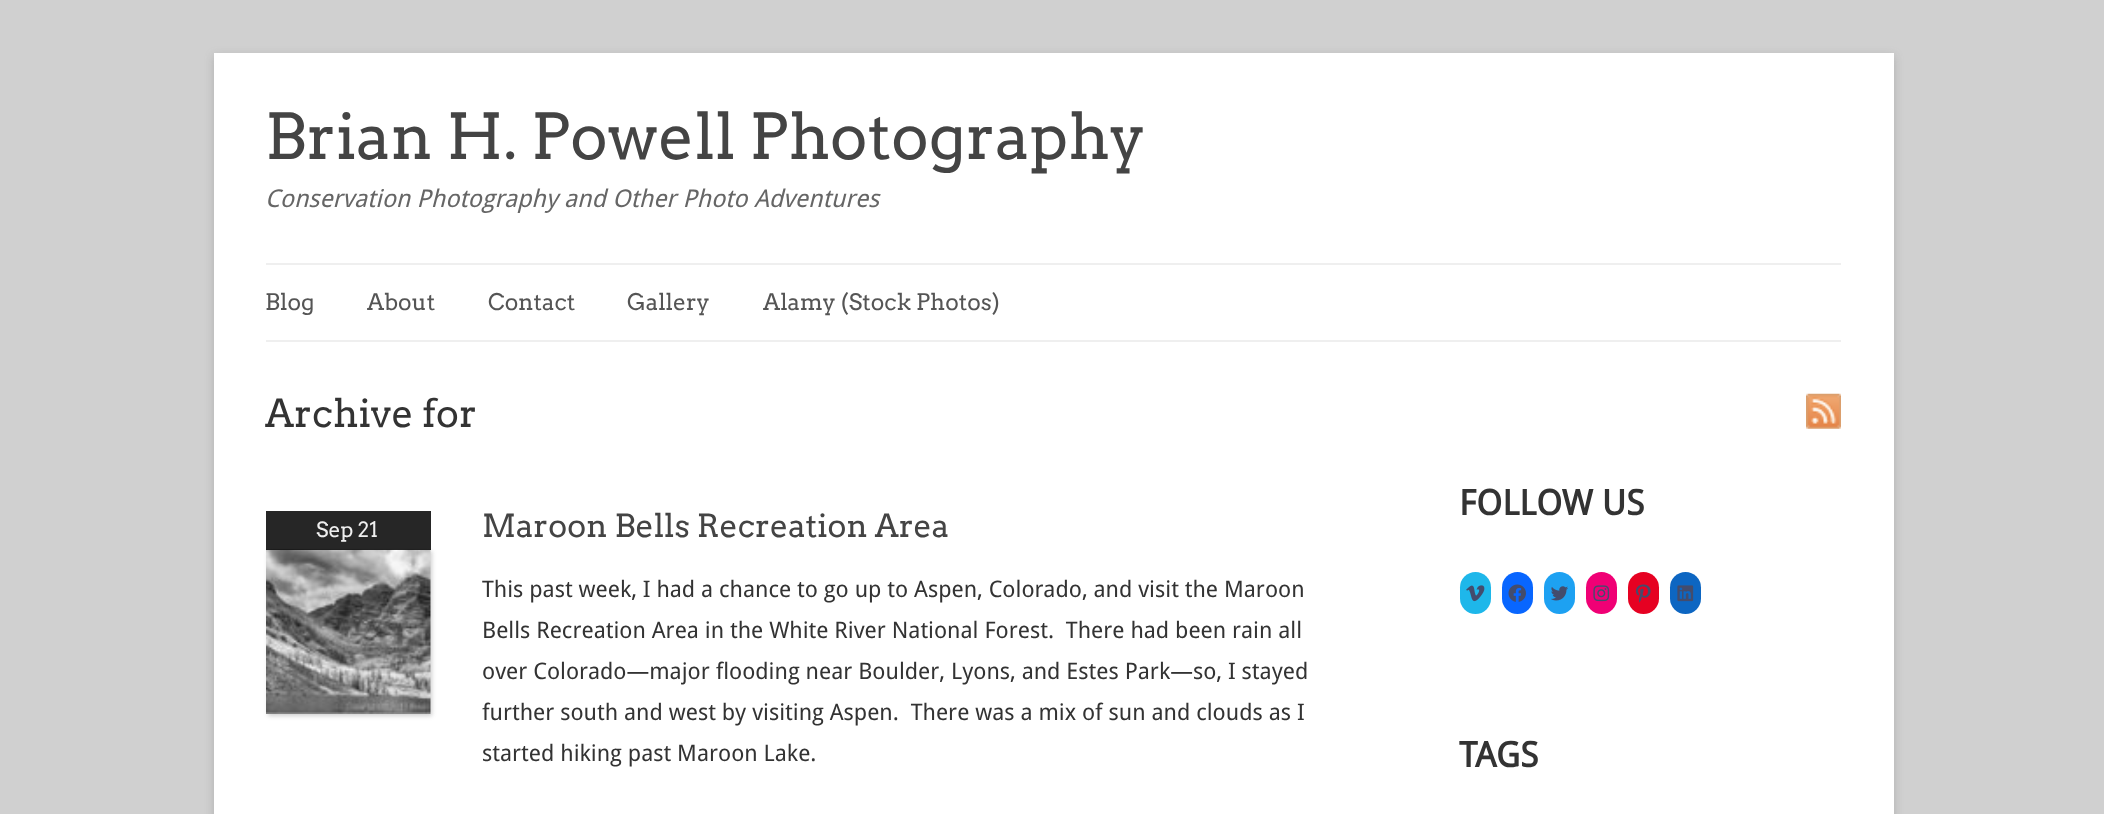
<!DOCTYPE html>
<meta charset="utf-8">
<style>body { margin: 0 } canvas { display: block }</style>
<canvas id="canvas" width="2104" height="814"></canvas>
<script type="module">
  const canvas = document.getElementById("canvas");
  const ctx = canvas.getContext("2d");
  ctx.miterLimit = 4;
  ctx.fontKerning = "normal";
  async function loadImage(src) {
    const img = new Image();
    img.src = src;
    await img.decode();
    return img;
  }

  ctx.fillStyle = "#d0d0d0";
  ctx.fillRect(0, 0, 2104, 814);
  ctx.fillStyle = "rgba(100, 100, 100, 0.3)";
  ctx.filter = "blur(5px)";
  ctx.beginPath();
  ctx.rect(214, 56, 1680, 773);
  ctx.fill();
  ctx.filter = "none";
  ctx.fillStyle = "#ffffff";
  ctx.fillRect(214, 53, 1680, 761);
  ctx.font = "63px Arvo";
  ctx.fillStyle = "#444444";
  ctx.fillText("Brian H. Powell Photography", 265, 159);
  ctx.font = "italic 24.5px Droid Sans";
  ctx.fillStyle = "#666666";
  ctx.fillText("Conservation Photography and Other Photo Adventures", 265, 207);
  ctx.fillStyle = "#efefef";
  ctx.fillRect(266, 263, 1575, 2);
  ctx.fillRect(266, 340, 1575, 2);
  ctx.font = "22.75px Arvo";
  ctx.fillStyle = "#555555";
  ctx.fillText("Blog", 265, 310);
  ctx.fillText("About", 367, 310);
  ctx.fillText("Contact", 488, 310);
  ctx.fillText("Gallery", 627, 310);
  ctx.fillText("Alamy (Stock Photos)", 763, 310);
  ctx.font = "38.5px Arvo";
  ctx.fillStyle = "#333333";
  ctx.fillText("Archive for", 265, 427);
  ctx.fillStyle = "rgba(100, 100, 100, 0.3)";
  ctx.filter = "blur(2px)";
  ctx.beginPath();
  ctx.rect(268, 551, 164, 165);
  ctx.fill();
  ctx.filter = "none";
  ctx.drawImage(await loadImage("img1.png"), 266, 549, 165, 165);
  ctx.fillStyle = "rgba(0, 0, 0, 0.85)";
  ctx.fillRect(266, 511, 165, 39);
  ctx.font = "21px Arvo";
  ctx.fillStyle = "#efefef";
  ctx.fillText("Sep 21", 316, 537);
  ctx.font = "31.8px Arvo";
  ctx.fillStyle = "#444444";
  ctx.fillText("Maroon Bells Recreation Area", 482, 537);
  ctx.font = "22.75px Droid Sans";
  ctx.fillStyle = "#333333";
  ctx.fillText("This past week, I had a chance to go up to Aspen, Colorado, and visit the Maroon", 482, 597);
  ctx.fillText("Bells Recreation Area in the White River National Forest.  There had been rain all", 482, 638);
  ctx.fillText("over Colorado—major flooding near Boulder, Lyons, and Estes Park—so, I stayed", 482, 679);
  ctx.fillText("further south and west by visiting Aspen.  There was a mix of sun and clouds as I", 482, 720);
  ctx.fillText("started hiking past Maroon Lake.", 482, 761);
  ctx.drawImage(await loadImage("img2.png"), 1806, 393, 35, 36);
  ctx.font = "bold 35px Droid Sans";
  ctx.fillText("FOLLOW US", 1459, 515);
  ctx.fillStyle = "#1eb7ea";
  ctx.beginPath();
  ctx.roundRect(1460, 572, 31, 42, 15.5);
  ctx.fill();
  ctx.drawImage(await loadImage("img3.png"), 1466, 585, 19, 17);
  ctx.fillStyle = "#0866ff";
  ctx.beginPath();
  ctx.roundRect(1502, 572, 31, 42, 15.5);
  ctx.fill();
  ctx.drawImage(await loadImage("img4.png"), 1508, 584, 18, 18);
  ctx.fillStyle = "#1da1f2";
  ctx.beginPath();
  ctx.roundRect(1544, 572, 31, 42, 15.5);
  ctx.fill();
  ctx.drawImage(await loadImage("img5.png"), 1551, 586, 17, 15);
  ctx.fillStyle = "#f00075";
  ctx.beginPath();
  ctx.roundRect(1586, 572, 31, 42, 15.5);
  ctx.fill();
  ctx.drawImage(await loadImage("img6.png"), 1593, 585, 17, 17);
  ctx.fillStyle = "#e60122";
  ctx.beginPath();
  ctx.roundRect(1628, 572, 31, 42, 15.5);
  ctx.fill();
  ctx.drawImage(await loadImage("img7.png"), 1635, 584, 16, 19);
  ctx.fillStyle = "#0d66c2";
  ctx.beginPath();
  ctx.roundRect(1670, 572, 31, 42, 15.5);
  ctx.fill();
  ctx.drawImage(await loadImage("img8.png"), 1677, 585, 17, 17);
  ctx.fillStyle = "#333333";
  ctx.fillText("TAGS", 1459, 767);
</script>
